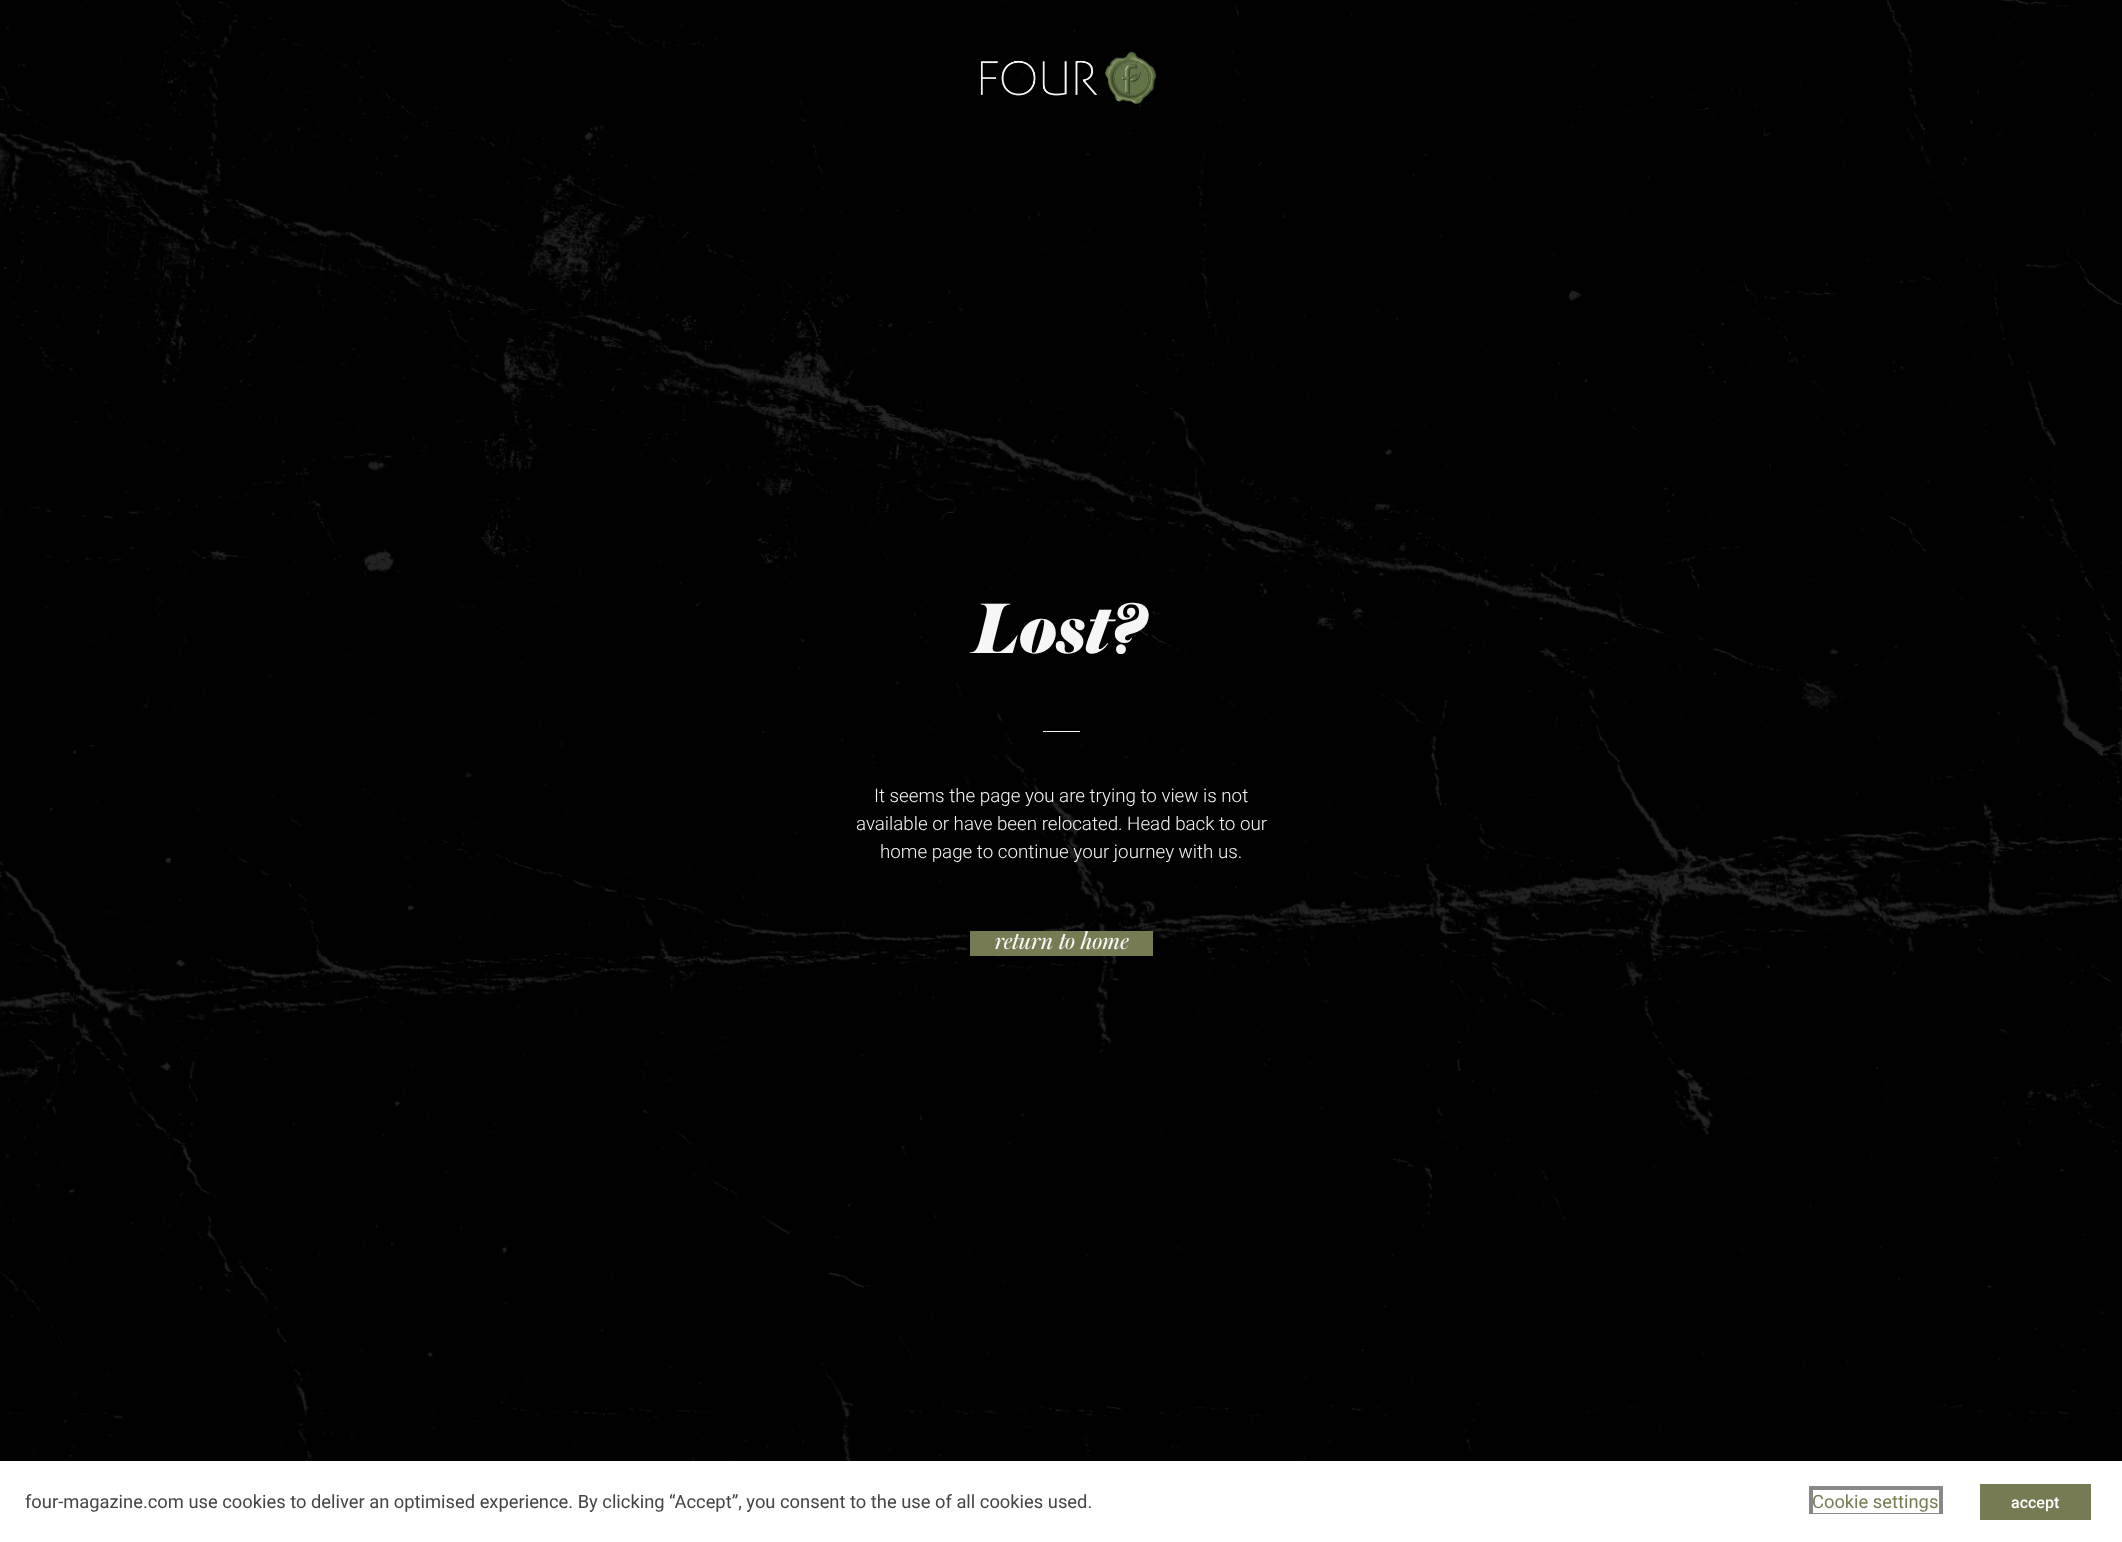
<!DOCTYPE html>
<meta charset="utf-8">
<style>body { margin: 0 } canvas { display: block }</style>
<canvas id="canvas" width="2122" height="1542"></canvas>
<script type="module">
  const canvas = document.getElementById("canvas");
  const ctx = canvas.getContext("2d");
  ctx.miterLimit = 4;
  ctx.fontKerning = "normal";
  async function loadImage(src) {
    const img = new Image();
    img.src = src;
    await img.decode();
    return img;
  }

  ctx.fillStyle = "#ffffff";
  ctx.fillRect(0, 0, 2122, 1542);
  ctx.drawImage(await loadImage("img2.png"), 0, 0, 2122, 1461);
  ctx.drawImage(await loadImage("img1.png"), 980, 52, 177, 52);
  ctx.font = "italic 900 75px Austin";
  ctx.fillStyle = "#f6f6f6";
  ctx.fillText("Lost?", 975, 653);
  ctx.fillRect(1043, 731, 37, 1);
  ctx.font = "300 18.75px Roboto";
  ctx.fillText("It seems the page you are trying to view is not", 874, 802);
  ctx.fillText("available or have been relocated. Head back to our", 856, 830);
  ctx.fillText("home page to continue your journey with us.", 880, 858);
  ctx.fillStyle = "#767b53";
  ctx.fillRect(970, 931, 183, 25);
  ctx.font = "italic 26px Austin";
  ctx.fillStyle = "#f6f6f6";
  ctx.fillText("return to home", 995, 949);
  ctx.font = "18.33px Roboto";
  ctx.fillStyle = "#444444";
  ctx.fillText("four-magazine.com use cookies to deliver an optimised experience. By clicking “Accept”, you consent to the use of all cookies used.", 25, 1508);
  ctx.fillStyle = "#767b53";
  ctx.fillText("Cookie settings", 1812, 1508);
  ctx.fillStyle = "#898888";
  ctx.fillRect(1809, 1486, 134, 4);
  ctx.fillRect(1939, 1486, 4, 28);
  ctx.fillRect(1809, 1513, 134, 1);
  ctx.fillRect(1809, 1486, 4, 28);
  ctx.fillStyle = "#767b53";
  ctx.fillRect(1980, 1484, 111, 36);
  ctx.font = "500 16px Roboto";
  ctx.fillStyle = "#ffffff";
  ctx.fillText("accept", 2011, 1508);
</script>
